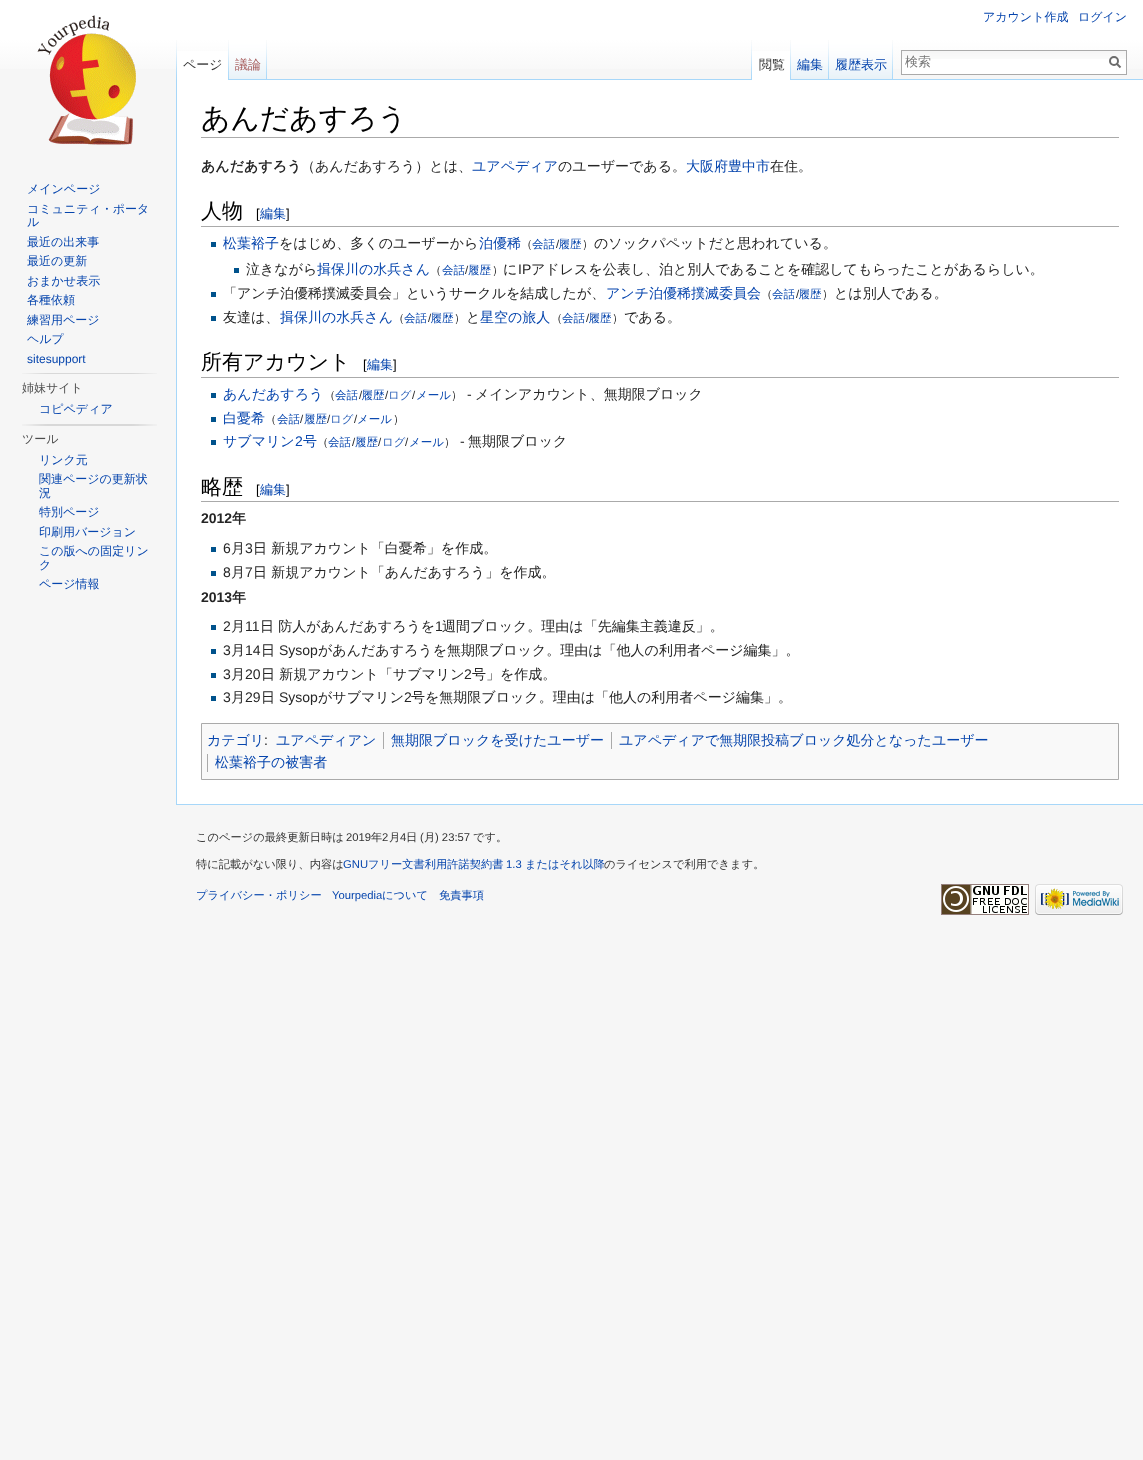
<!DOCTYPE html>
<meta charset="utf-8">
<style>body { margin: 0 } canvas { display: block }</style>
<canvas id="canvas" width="1143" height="1460"></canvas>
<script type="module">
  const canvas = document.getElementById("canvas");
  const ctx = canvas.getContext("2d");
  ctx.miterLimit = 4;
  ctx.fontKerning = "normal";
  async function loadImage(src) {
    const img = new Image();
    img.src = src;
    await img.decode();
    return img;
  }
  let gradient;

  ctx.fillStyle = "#f6f6f6";
  ctx.fillRect(0, 0, 1143, 1460);
  gradient = ctx.createLinearGradient(572, 0, 572, 80);
  gradient.addColorStop(0.5, "#ffffff");
  gradient.addColorStop(1, "#f6f6f6");
  ctx.fillStyle = gradient;
  ctx.fillRect(0, 0, 1143, 69);
  ctx.font = "500 12px WenQuanYi Zen Hei";
  ctx.fillStyle = "#0645ad";
  ctx.fillText("アカウント作成", 983, 21);
  ctx.fillText("ログイン", 1078, 21);
  ctx.drawImage(await loadImage("img1.png"), 176, 40, 1, 39);
  ctx.fillStyle = "#ffffff";
  ctx.fillRect(177, 51, 51, 29);
  ctx.drawImage(await loadImage("img2.png"), 228, 40, 1, 40);
  ctx.font = "500 13px WenQuanYi Zen Hei";
  ctx.fillStyle = "#333333";
  ctx.fillText("ページ", 183, 69);
  ctx.drawImage(await loadImage("img3.png"), 229, 40, 38, 40);
  ctx.drawImage(await loadImage("img4.png"), 266, 40, 1, 39);
  ctx.fillStyle = "#a55858";
  ctx.fillText("議論", 235, 69);
  ctx.drawImage(await loadImage("img1.png"), 751, 40, 1, 39);
  ctx.fillStyle = "#a7d7f9";
  ctx.fillRect(267, 79, 876, 1);
  ctx.fillStyle = "#ffffff";
  ctx.fillRect(752, 51, 38, 29);
  ctx.drawImage(await loadImage("img2.png"), 790, 40, 1, 40);
  ctx.fillStyle = "#333333";
  ctx.fillText("閲覧", 759, 69);
  ctx.drawImage(await loadImage("img3.png"), 791, 40, 38, 40);
  ctx.drawImage(await loadImage("img4.png"), 828, 40, 1, 39);
  ctx.fillStyle = "#0645ad";
  ctx.fillText("編集", 797, 69);
  ctx.drawImage(await loadImage("img5.png"), 829, 40, 64, 40);
  ctx.drawImage(await loadImage("img4.png"), 892, 40, 1, 39);
  ctx.fillText("履歴表示", 835, 69);
  ctx.fillStyle = "#ffffff";
  ctx.fillRect(902, 59, 224, 15);
  ctx.drawImage(await loadImage("img6.png"), 902, 51, 224, 8);
  ctx.strokeStyle = "#aaaaaa";
  ctx.strokeRect(901.5, 50.5, 225, 24);
  ctx.fillStyle = "#757575";
  ctx.fillText("検索", 905, 66);
  ctx.beginPath();
  ctx.moveTo(1120.5, 67.5);
  ctx.lineTo(1116.5, 63.5);
  ctx.strokeStyle = "#6c6c6c";
  ctx.lineWidth = 2;
  ctx.stroke();
  ctx.beginPath();
  ctx.arc(1114, 61, 4, 0, Math.PI * 2);
  ctx.stroke();
  ctx.drawImage(await loadImage("img7.png"), 37, 15, 99, 130);
  ctx.font = "500 12px WenQuanYi Zen Hei";
  ctx.fillStyle = "#0645ad";
  ctx.fillText("メインページ", 27, 193);
  ctx.fillText("コミュニティ・ポータ", 27, 213);
  ctx.fillText("ル", 27, 226);
  ctx.fillText("最近の出来事", 27, 246);
  ctx.fillText("最近の更新", 27, 265);
  ctx.fillText("おまかせ表示", 27, 285);
  ctx.fillText("各種依頼", 27, 304);
  ctx.fillText("練習用ページ", 27, 324);
  ctx.fillText("ヘルプ", 27, 343);
  ctx.font = "12px Liberation Sans";
  ctx.fillText("sitesupport", 27, 363);
  ctx.drawImage(await loadImage("img8.png"), 22, 373, 135, 1);
  ctx.font = "500 12px WenQuanYi Zen Hei";
  ctx.fillStyle = "#4d4d4d";
  ctx.fillText("姉妹サイト", 22, 392);
  ctx.fillStyle = "#0645ad";
  ctx.fillText("コピペディア", 39, 413);
  ctx.drawImage(await loadImage("img9.png"), 22, 424, 135, 2);
  ctx.fillStyle = "#4d4d4d";
  ctx.fillText("ツール", 22, 443);
  ctx.fillStyle = "#0645ad";
  ctx.fillText("リンク元", 39, 464);
  ctx.fillText("関連ページの更新状", 39, 483);
  ctx.fillText("況", 39, 497);
  ctx.fillText("特別ページ", 39, 516);
  ctx.fillText("印刷用バージョン", 39, 536);
  ctx.fillText("この版への固定リン", 39, 555);
  ctx.fillText("ク", 39, 569);
  ctx.fillText("ページ情報", 39, 588);
  ctx.fillStyle = "#ffffff";
  ctx.fillRect(177, 80, 966, 724);
  ctx.fillStyle = "#a7d7f9";
  ctx.fillRect(176, 804, 967, 1);
  ctx.fillRect(176, 79, 1, 726);
  ctx.fillStyle = "#aaaaaa";
  ctx.fillRect(201, 137, 918, 1);
  ctx.font = "500 28.75px WenQuanYi Zen Hei";
  ctx.fillStyle = "#000000";
  ctx.fillText("あんだあすろう", 201, 128);
  ctx.font = "bold 14px WenQuanYi Zen Hei";
  ctx.fillStyle = "#252525";
  ctx.fillText("あんだあすろう", 201, 171);
  ctx.font = "500 14px WenQuanYi Zen Hei";
  ctx.fillText("（あんだあすろう）とは、", 301, 171);
  ctx.fillStyle = "#0645ad";
  ctx.fillText("ユアペディア", 472, 171);
  ctx.fillStyle = "#252525";
  ctx.fillText("のユーザーである。", 558, 171);
  ctx.fillStyle = "#0645ad";
  ctx.fillText("大阪府豊中市", 686, 171);
  ctx.fillStyle = "#252525";
  ctx.fillText("在住。", 770, 171);
  ctx.fillStyle = "#aaaaaa";
  ctx.fillRect(201, 226, 918, 1);
  ctx.font = "500 21px WenQuanYi Zen Hei";
  ctx.fillStyle = "#000000";
  ctx.fillText("人物", 201, 218);
  ctx.font = "13px Liberation Sans";
  ctx.fillText("[", 256, 218);
  ctx.font = "500 13px WenQuanYi Zen Hei";
  ctx.fillStyle = "#0645ad";
  ctx.fillText("編集", 260, 218);
  ctx.font = "13px Liberation Sans";
  ctx.fillStyle = "#000000";
  ctx.fillText("]", 286, 218);
  ctx.fillStyle = "#00528c";
  ctx.fillRect(211, 242, 5, 5);
  ctx.font = "500 14px WenQuanYi Zen Hei";
  ctx.fillStyle = "#0645ad";
  ctx.fillText("松葉裕子", 223, 248);
  ctx.fillStyle = "#252525";
  ctx.fillText("をはじめ、多くのユーザーから", 279, 248);
  ctx.fillStyle = "#0645ad";
  ctx.fillText("泊優稀", 479, 248);
  ctx.font = "500 11.5px WenQuanYi Zen Hei";
  ctx.fillText("会話 履歴", 532, 248);
  ctx.font = "500 14px WenQuanYi Zen Hei";
  ctx.fillStyle = "#252525";
  ctx.fillText("のソックパペットだと思われている。", 594, 248);
  ctx.font = "500 11.5px WenQuanYi Zen Hei";
  ctx.fillText("（", 521, 248);
  ctx.font = "11.5px Liberation Sans";
  ctx.fillText("/", 556, 248);
  ctx.font = "500 11.5px WenQuanYi Zen Hei";
  ctx.fillText("）", 582, 248);
  ctx.fillStyle = "#00528c";
  ctx.fillRect(234, 268, 5, 5);
  ctx.font = "500 14px WenQuanYi Zen Hei";
  ctx.fillStyle = "#252525";
  ctx.fillText("泣きながら", 246, 274);
  ctx.fillStyle = "#0645ad";
  ctx.fillText("揖保川の水兵さん", 317, 274);
  ctx.font = "500 11.5px WenQuanYi Zen Hei";
  ctx.fillStyle = "#252525";
  ctx.fillText("（", 430, 274);
  ctx.fillStyle = "#0645ad";
  ctx.fillText("会話", 442, 274);
  ctx.font = "11.5px Liberation Sans";
  ctx.fillStyle = "#252525";
  ctx.fillText("/", 465, 274);
  ctx.font = "500 11.5px WenQuanYi Zen Hei";
  ctx.fillStyle = "#0645ad";
  ctx.fillText("履歴", 468, 274);
  ctx.fillStyle = "#252525";
  ctx.fillText("）", 492, 274);
  ctx.font = "500 14px WenQuanYi Zen Hei";
  ctx.fillText("に", 503, 274);
  ctx.font = "14px Liberation Sans";
  ctx.fillText("IP", 518, 274);
  ctx.font = "500 14px WenQuanYi Zen Hei";
  ctx.fillText("アドレスを公表し、泊と別人であることを確認してもらったことがあるらしい。", 531, 274);
  ctx.fillStyle = "#00528c";
  ctx.fillRect(211, 292, 5, 5);
  ctx.fillStyle = "#252525";
  ctx.fillText("「アンチ泊優稀撲滅委員会」というサークルを結成したが、", 223, 298);
  ctx.fillStyle = "#0645ad";
  ctx.fillText("アンチ泊優稀撲滅委員会", 606, 298);
  ctx.font = "500 11.5px WenQuanYi Zen Hei";
  ctx.fillText("会話 履歴", 772, 298);
  ctx.font = "500 14px WenQuanYi Zen Hei";
  ctx.fillStyle = "#252525";
  ctx.fillText("とは別人である。", 834, 298);
  ctx.font = "500 11.5px WenQuanYi Zen Hei";
  ctx.fillText("（", 761, 298);
  ctx.font = "11.5px Liberation Sans";
  ctx.fillText("/", 796, 298);
  ctx.font = "500 11.5px WenQuanYi Zen Hei";
  ctx.fillText("）", 822, 298);
  ctx.fillStyle = "#00528c";
  ctx.fillRect(211, 316, 5, 5);
  ctx.font = "500 14px WenQuanYi Zen Hei";
  ctx.fillStyle = "#252525";
  ctx.fillText("友達は、", 223, 322);
  ctx.fillStyle = "#0645ad";
  ctx.fillText("揖保川の水兵さん", 280, 322);
  ctx.font = "500 11.5px WenQuanYi Zen Hei";
  ctx.fillText("会話 履歴", 404, 322);
  ctx.font = "500 14px WenQuanYi Zen Hei";
  ctx.fillStyle = "#252525";
  ctx.fillText("と", 466, 322);
  ctx.fillStyle = "#0645ad";
  ctx.fillText("星空の旅人", 480, 322);
  ctx.font = "500 11.5px WenQuanYi Zen Hei";
  ctx.fillText("会話 履歴", 562, 322);
  ctx.font = "500 14px WenQuanYi Zen Hei";
  ctx.fillStyle = "#252525";
  ctx.fillText("である。", 624, 322);
  ctx.font = "500 11.5px WenQuanYi Zen Hei";
  ctx.fillText("（", 393, 322);
  ctx.font = "11.5px Liberation Sans";
  ctx.fillText("/", 428, 322);
  ctx.font = "500 11.5px WenQuanYi Zen Hei";
  ctx.fillText("）", 454, 322);
  ctx.fillText("（", 551, 322);
  ctx.font = "11.5px Liberation Sans";
  ctx.fillText("/", 586, 322);
  ctx.font = "500 11.5px WenQuanYi Zen Hei";
  ctx.fillText("）", 612, 322);
  ctx.fillStyle = "#aaaaaa";
  ctx.fillRect(201, 377, 918, 1);
  ctx.font = "500 21px WenQuanYi Zen Hei";
  ctx.fillStyle = "#000000";
  ctx.fillText("所有アカウント", 201, 369);
  ctx.font = "13px Liberation Sans";
  ctx.fillText("[", 363, 369);
  ctx.font = "500 13px WenQuanYi Zen Hei";
  ctx.fillStyle = "#0645ad";
  ctx.fillText("編集", 367, 369);
  ctx.font = "13px Liberation Sans";
  ctx.fillStyle = "#000000";
  ctx.fillText("]", 393, 369);
  ctx.fillStyle = "#00528c";
  ctx.fillRect(211, 393, 5, 5);
  ctx.font = "500 14px WenQuanYi Zen Hei";
  ctx.fillStyle = "#0645ad";
  ctx.fillText("あんだあすろう", 223, 399);
  ctx.font = "500 11.5px WenQuanYi Zen Hei";
  ctx.fillText("会話 履歴", 335, 399);
  ctx.fillStyle = "#3366bb";
  ctx.fillText("ログ", 388, 399);
  ctx.font = "500 14px WenQuanYi Zen Hei";
  ctx.fillStyle = "#252525";
  ctx.fillText("メインアカウント、無期限ブロック", 475, 399);
  ctx.font = "500 11.5px WenQuanYi Zen Hei";
  ctx.fillText("（", 324, 399);
  ctx.font = "11.5px Liberation Sans";
  ctx.fillText("/", 359, 399);
  ctx.fillText("/", 385, 399);
  ctx.fillText("/", 412, 399);
  ctx.font = "500 11.5px WenQuanYi Zen Hei";
  ctx.fillStyle = "#0645ad";
  ctx.fillText("メール", 416, 399);
  ctx.fillStyle = "#252525";
  ctx.fillText("）", 451, 399);
  ctx.font = "14px Liberation Sans";
  ctx.fillText("-", 467, 399);
  ctx.fillStyle = "#00528c";
  ctx.fillRect(211, 417, 5, 5);
  ctx.font = "500 14px WenQuanYi Zen Hei";
  ctx.fillStyle = "#0645ad";
  ctx.fillText("白憂希", 223, 423);
  ctx.font = "500 11.5px WenQuanYi Zen Hei";
  ctx.fillStyle = "#252525";
  ctx.fillText("（", 265, 423);
  ctx.fillStyle = "#0645ad";
  ctx.fillText("会話", 277, 423);
  ctx.font = "11.5px Liberation Sans";
  ctx.fillStyle = "#252525";
  ctx.fillText("/", 300, 423);
  ctx.font = "500 11.5px WenQuanYi Zen Hei";
  ctx.fillStyle = "#0645ad";
  ctx.fillText("履歴", 304, 423);
  ctx.font = "11.5px Liberation Sans";
  ctx.fillStyle = "#252525";
  ctx.fillText("/", 327, 423);
  ctx.font = "500 11.5px WenQuanYi Zen Hei";
  ctx.fillStyle = "#3366bb";
  ctx.fillText("ログ", 330, 423);
  ctx.font = "11.5px Liberation Sans";
  ctx.fillStyle = "#252525";
  ctx.fillText("/", 354, 423);
  ctx.font = "500 11.5px WenQuanYi Zen Hei";
  ctx.fillStyle = "#0645ad";
  ctx.fillText("メール", 357, 423);
  ctx.fillStyle = "#252525";
  ctx.fillText("）", 393, 423);
  ctx.fillStyle = "#00528c";
  ctx.fillRect(211, 440, 5, 5);
  ctx.font = "500 14px WenQuanYi Zen Hei";
  ctx.fillStyle = "#0645ad";
  ctx.fillText("サブマリン", 223, 446);
  ctx.font = "14px Liberation Sans";
  ctx.fillText("2", 295, 446);
  ctx.font = "500 14px WenQuanYi Zen Hei";
  ctx.fillText("号", 303, 446);
  ctx.font = "500 11.5px WenQuanYi Zen Hei";
  ctx.fillStyle = "#252525";
  ctx.fillText("（", 317, 446);
  ctx.fillStyle = "#0645ad";
  ctx.fillText("会話", 328, 446);
  ctx.font = "11.5px Liberation Sans";
  ctx.fillStyle = "#252525";
  ctx.fillText("/", 352, 446);
  ctx.font = "500 11.5px WenQuanYi Zen Hei";
  ctx.fillStyle = "#0645ad";
  ctx.fillText("履歴", 355, 446);
  ctx.font = "11.5px Liberation Sans";
  ctx.fillStyle = "#252525";
  ctx.fillText("/", 378, 446);
  ctx.font = "500 11.5px WenQuanYi Zen Hei";
  ctx.fillStyle = "#3366bb";
  ctx.fillText("ログ", 382, 446);
  ctx.font = "11.5px Liberation Sans";
  ctx.fillStyle = "#252525";
  ctx.fillText("/", 405, 446);
  ctx.font = "500 11.5px WenQuanYi Zen Hei";
  ctx.fillStyle = "#0645ad";
  ctx.fillText("メール", 409, 446);
  ctx.fillStyle = "#252525";
  ctx.fillText("）", 444, 446);
  ctx.font = "14px Liberation Sans";
  ctx.fillText(" -", 456, 446);
  ctx.font = "500 14px WenQuanYi Zen Hei";
  ctx.fillText("無期限ブロック", 468, 446);
  ctx.fillStyle = "#aaaaaa";
  ctx.fillRect(201, 501, 918, 1);
  ctx.font = "500 21px WenQuanYi Zen Hei";
  ctx.fillStyle = "#000000";
  ctx.fillText("略歴", 201, 494);
  ctx.font = "13px Liberation Sans";
  ctx.fillText("[", 256, 494);
  ctx.font = "500 13px WenQuanYi Zen Hei";
  ctx.fillStyle = "#0645ad";
  ctx.fillText("編集", 260, 494);
  ctx.font = "13px Liberation Sans";
  ctx.fillStyle = "#000000";
  ctx.fillText("]", 286, 494);
  ctx.font = "bold 14px Liberation Sans";
  ctx.fillStyle = "#252525";
  ctx.fillText("2012", 201, 523);
  ctx.font = "bold 14px WenQuanYi Zen Hei";
  ctx.fillText("年", 232, 523);
  ctx.fillStyle = "#00528c";
  ctx.fillRect(211, 547, 5, 5);
  ctx.font = "14px Liberation Sans";
  ctx.fillStyle = "#252525";
  ctx.fillText("6", 223, 553);
  ctx.font = "500 14px WenQuanYi Zen Hei";
  ctx.fillText("月", 231, 553);
  ctx.font = "14px Liberation Sans";
  ctx.fillText("3", 245, 553);
  ctx.font = "500 14px WenQuanYi Zen Hei";
  ctx.fillText("日 新規アカウント「白憂希」を作成。", 253, 553);
  ctx.fillStyle = "#00528c";
  ctx.fillRect(211, 571, 5, 5);
  ctx.font = "14px Liberation Sans";
  ctx.fillStyle = "#252525";
  ctx.fillText("8", 223, 577);
  ctx.font = "500 14px WenQuanYi Zen Hei";
  ctx.fillText("月", 231, 577);
  ctx.font = "14px Liberation Sans";
  ctx.fillText("7", 245, 577);
  ctx.font = "500 14px WenQuanYi Zen Hei";
  ctx.fillText("日 新規アカウント「あんだあすろう」を作成。", 253, 577);
  ctx.font = "bold 14px Liberation Sans";
  ctx.fillText("2013", 201, 602);
  ctx.font = "bold 14px WenQuanYi Zen Hei";
  ctx.fillText("年", 232, 602);
  ctx.fillStyle = "#00528c";
  ctx.fillRect(211, 625, 5, 5);
  ctx.font = "14px Liberation Sans";
  ctx.fillStyle = "#252525";
  ctx.fillText("2", 223, 631);
  ctx.font = "500 14px WenQuanYi Zen Hei";
  ctx.fillText("月", 231, 631);
  ctx.font = "14px Liberation Sans";
  ctx.fillText("11", 245, 631);
  ctx.font = "500 14px WenQuanYi Zen Hei";
  ctx.fillText("日 防人があんだあすろうを", 260, 631);
  ctx.font = "14px Liberation Sans";
  ctx.fillText("1", 435, 631);
  ctx.font = "500 14px WenQuanYi Zen Hei";
  ctx.fillText("週間ブロック。理由は「先編集主義違反」。", 442, 631);
  ctx.fillStyle = "#00528c";
  ctx.fillRect(211, 649, 5, 5);
  ctx.font = "14px Liberation Sans";
  ctx.fillStyle = "#252525";
  ctx.fillText("3", 223, 655);
  ctx.font = "500 14px WenQuanYi Zen Hei";
  ctx.fillText("月", 231, 655);
  ctx.font = "14px Liberation Sans";
  ctx.fillText("14", 245, 655);
  ctx.font = "500 14px WenQuanYi Zen Hei";
  ctx.fillText("日", 261, 655);
  ctx.font = "14px Liberation Sans";
  ctx.fillText("Sysop", 279, 655);
  ctx.font = "500 14px WenQuanYi Zen Hei";
  ctx.fillText("があんだあすろうを無期限ブロック。理由は「他人の利用者ページ編集」。", 318, 655);
  ctx.fillStyle = "#00528c";
  ctx.fillRect(211, 673, 5, 5);
  ctx.font = "14px Liberation Sans";
  ctx.fillStyle = "#252525";
  ctx.fillText("3", 223, 679);
  ctx.font = "500 14px WenQuanYi Zen Hei";
  ctx.fillText("月", 231, 679);
  ctx.font = "14px Liberation Sans";
  ctx.fillText("20", 245, 679);
  ctx.font = "500 14px WenQuanYi Zen Hei";
  ctx.fillText("日 新規アカウント「サブマリン", 261, 679);
  ctx.font = "14px Liberation Sans";
  ctx.fillText("2", 464, 679);
  ctx.font = "500 14px WenQuanYi Zen Hei";
  ctx.fillText("号」を作成。", 472, 679);
  ctx.fillStyle = "#00528c";
  ctx.fillRect(211, 696, 5, 5);
  ctx.font = "14px Liberation Sans";
  ctx.fillStyle = "#252525";
  ctx.fillText("3", 223, 702);
  ctx.font = "500 14px WenQuanYi Zen Hei";
  ctx.fillText("月", 231, 702);
  ctx.font = "14px Liberation Sans";
  ctx.fillText("29", 245, 702);
  ctx.font = "500 14px WenQuanYi Zen Hei";
  ctx.fillText("日", 261, 702);
  ctx.font = "14px Liberation Sans";
  ctx.fillText("Sysop", 279, 702);
  ctx.font = "500 14px WenQuanYi Zen Hei";
  ctx.fillText("がサブマリン", 318, 702);
  ctx.font = "14px Liberation Sans";
  ctx.fillText("2", 404, 702);
  ctx.font = "500 14px WenQuanYi Zen Hei";
  ctx.fillText("号を無期限ブロック。理由は「他人の利用者ページ編集」。", 411, 702);
  ctx.fillStyle = "#f9f9f9";
  ctx.beginPath();
  ctx.rect(201.5, 723.5, 917, 56);
  ctx.fill();
  ctx.strokeStyle = "#aaaaaa";
  ctx.lineWidth = 1;
  ctx.stroke();
  ctx.fillStyle = "#0645ad";
  ctx.fillText("カテゴリ", 207, 745);
  ctx.fillText("ユアペディアン", 276, 745);
  ctx.fillStyle = "#aaaaaa";
  ctx.fillRect(383, 732, 1, 17);
  ctx.fillStyle = "#0645ad";
  ctx.fillText("無期限ブロックを受けたユーザー", 391, 745);
  ctx.fillStyle = "#aaaaaa";
  ctx.fillRect(611, 732, 1, 17);
  ctx.fillStyle = "#0645ad";
  ctx.fillText("ユアペディアで無期限投稿ブロック処分となったユーザー", 619, 745);
  ctx.fillStyle = "#aaaaaa";
  ctx.fillRect(207, 754, 1, 18);
  ctx.fillStyle = "#0645ad";
  ctx.fillText("松葉裕子の被害者", 215, 767);
  ctx.font = "14px Liberation Sans";
  ctx.fillStyle = "#252525";
  ctx.fillText(":", 264, 745);
  ctx.font = "500 11.25px WenQuanYi Zen Hei";
  ctx.fillStyle = "#333333";
  ctx.fillText("このページの最終更新日時は", 196, 841);
  ctx.font = "11.25px Liberation Sans";
  ctx.fillText("2019", 346, 841);
  ctx.font = "500 11.25px WenQuanYi Zen Hei";
  ctx.fillText("年", 371, 841);
  ctx.font = "11.25px Liberation Sans";
  ctx.fillText("2", 382, 841);
  ctx.font = "500 11.25px WenQuanYi Zen Hei";
  ctx.fillText("月", 389, 841);
  ctx.font = "11.25px Liberation Sans";
  ctx.fillText("4", 400, 841);
  ctx.font = "500 11.25px WenQuanYi Zen Hei";
  ctx.fillText("日", 406, 841);
  ctx.font = "11.25px Liberation Sans";
  ctx.fillText("(", 420, 841);
  ctx.font = "500 11.25px WenQuanYi Zen Hei";
  ctx.fillText("月", 424, 841);
  ctx.font = "11.25px Liberation Sans";
  ctx.fillText(") 23:57", 435, 841);
  ctx.font = "500 11.25px WenQuanYi Zen Hei";
  ctx.fillText("です。", 473, 841);
  ctx.fillText("特に記載がない限り、内容は", 196, 868);
  ctx.font = "11.25px Liberation Sans";
  ctx.fillStyle = "#0645ad";
  ctx.fillText("GNU", 343, 868);
  ctx.font = "500 11.25px WenQuanYi Zen Hei";
  ctx.fillText("フリー文書利用許諾契約書", 368, 868);
  ctx.font = "11.25px Liberation Sans";
  ctx.fillText("1.3", 506, 868);
  ctx.font = "500 11.25px WenQuanYi Zen Hei";
  ctx.fillText("またはそれ以降", 525, 868);
  ctx.fillStyle = "#333333";
  ctx.fillText("のライセンスで利用できます。", 604, 868);
  ctx.fillStyle = "#0645ad";
  ctx.fillText("プライバシー・ポリシー", 196, 899);
  ctx.font = "11.25px Liberation Sans";
  ctx.fillText("Yourpedia", 332, 899);
  ctx.font = "500 11.25px WenQuanYi Zen Hei";
  ctx.fillText("について", 382, 899);
  ctx.fillText("免責事項", 439, 899);
  ctx.drawImage(await loadImage("img10.png"), 941, 884, 88, 31);
  ctx.drawImage(await loadImage("img11.png"), 1035, 884, 88, 31);
</script>
